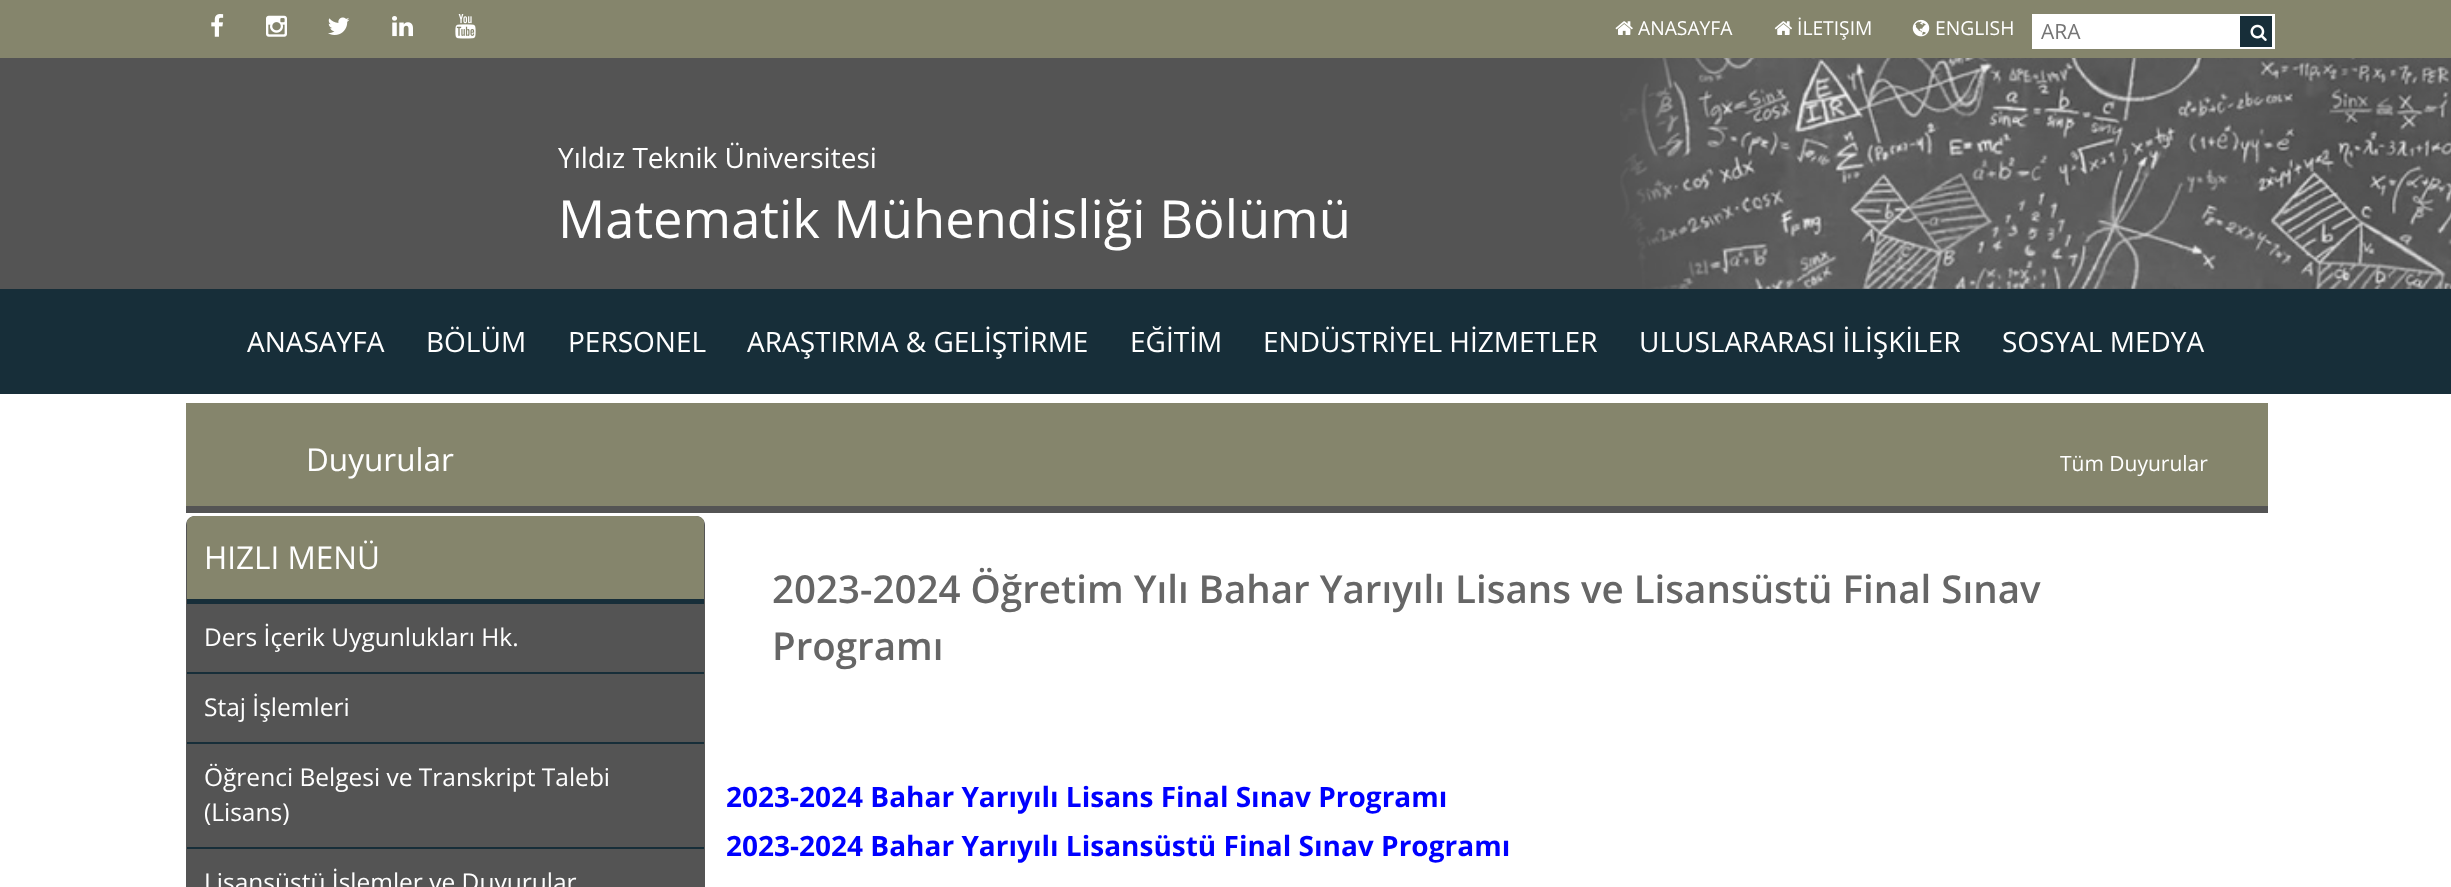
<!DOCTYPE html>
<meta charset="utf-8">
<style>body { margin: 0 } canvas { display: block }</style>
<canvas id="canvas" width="2451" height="887"></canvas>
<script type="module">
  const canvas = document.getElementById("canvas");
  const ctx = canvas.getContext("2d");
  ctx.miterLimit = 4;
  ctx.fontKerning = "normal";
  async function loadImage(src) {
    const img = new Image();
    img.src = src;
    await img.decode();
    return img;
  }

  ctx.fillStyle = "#ffffff";
  ctx.fillRect(0, 0, 2451, 887);
  ctx.fillStyle = "#545454";
  ctx.fillRect(0, 58, 2451, 231);
  ctx.drawImage(await loadImage("img1.png"), 1620, 58, 831, 231);
  ctx.fillStyle = "#85856c";
  ctx.fillRect(0, 0, 2451, 58);
  ctx.drawImage(await loadImage("img2.png"), 211, 14, 13, 23);
  ctx.drawImage(await loadImage("img3.png"), 266, 15, 21, 22);
  ctx.drawImage(await loadImage("img4.png"), 328, 17, 22, 18);
  ctx.drawImage(await loadImage("img5.png"), 392, 16, 21, 21);
  ctx.drawImage(await loadImage("img6.png"), 455, 14, 21, 25);
  ctx.drawImage(await loadImage("img7.png"), 1615, 21, 18, 14);
  ctx.font = "19.25px Open Sans";
  ctx.fillStyle = "#ffffff";
  ctx.fillText("ANASAYFA", 1638, 35);
  ctx.drawImage(await loadImage("img8.png"), 1774, 21, 18, 14);
  ctx.fillText("İLETIŞIM", 1797, 35);
  ctx.drawImage(await loadImage("img9.png"), 1912, 19, 18, 18);
  ctx.fillText("ENGLISH", 1935, 35);
  ctx.fillRect(2032, 14, 243, 35);
  ctx.font = "21px Open Sans";
  ctx.fillStyle = "#757575";
  ctx.fillText("ARA", 2041, 39);
  ctx.fillStyle = "#172e39";
  ctx.fillRect(2240, 16, 32, 31);
  ctx.drawImage(await loadImage("img10.png"), 2250, 24, 17, 17);
  ctx.font = "28px Open Sans";
  ctx.fillStyle = "#ffffff";
  ctx.fillText("Yıldız Teknik Üniversitesi", 558, 168);
  ctx.font = "52.5px Open Sans";
  ctx.fillText("Matematik Mühendisliği Bölümü", 558, 238);
  ctx.fillStyle = "#172e39";
  ctx.fillRect(0, 289, 2451, 105);
  ctx.font = "28px Open Sans";
  ctx.fillStyle = "#ffffff";
  ctx.fillText("ANASAYFA", 247, 352);
  ctx.fillText("BÖLÜM", 426, 352);
  ctx.fillText("PERSONEL", 568, 352);
  ctx.fillText("ARAŞTIRMA & GELİŞTİRME", 747, 352);
  ctx.fillText("EĞİTİM", 1130, 352);
  ctx.fillText("ENDÜSTRİYEL HİZMETLER", 1263, 352);
  ctx.fillText("ULUSLARARASI İLİŞKİLER", 1639, 352);
  ctx.fillText("SOSYAL MEDYA", 2002, 352);
  ctx.fillStyle = "#85856c";
  ctx.fillRect(186, 403, 2082, 103);
  ctx.fillStyle = "#545454";
  ctx.fillRect(186, 506, 2082, 7);
  ctx.font = "31.5px Open Sans";
  ctx.fillStyle = "#ffffff";
  ctx.fillText("Duyurular", 306, 471);
  ctx.font = "21px Open Sans";
  ctx.fillText("Tüm Duyurular", 2060, 471);
  ctx.fillStyle = "#545454";
  ctx.beginPath();
  ctx.moveTo(195, 516);
  ctx.lineTo(696, 516);
  ctx.bezierCurveTo(701, 516, 705, 520, 705, 525);
  ctx.lineTo(705, 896);
  ctx.lineTo(186, 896);
  ctx.lineTo(186, 525);
  ctx.bezierCurveTo(186, 520, 190, 516, 195, 516);
  ctx.closePath();
  ctx.fill();
  ctx.save();
  ctx.beginPath();
  ctx.moveTo(195, 516);
  ctx.lineTo(696, 516);
  ctx.bezierCurveTo(701, 516, 705, 520, 705, 525);
  ctx.lineTo(705, 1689);
  ctx.lineTo(186, 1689);
  ctx.lineTo(186, 525);
  ctx.bezierCurveTo(186, 520, 190, 516, 195, 516);
  ctx.closePath();
  ctx.clip();
  ctx.fillStyle = "#85856c";
  ctx.fillRect(187, 516, 517, 83);
  ctx.restore();
  ctx.fillStyle = "#172e39";
  ctx.fillRect(187, 599, 517, 5);
  ctx.font = "31.5px Open Sans";
  ctx.fillStyle = "#ffffff";
  ctx.fillText("HIZLI MENÜ", 204, 569);
  ctx.fillStyle = "#172e39";
  ctx.fillRect(187, 672, 517, 2);
  ctx.font = "24.5px Open Sans";
  ctx.fillStyle = "#ffffff";
  ctx.fillText("Ders İçerik Uygunlukları Hk.", 204, 646);
  ctx.fillStyle = "#172e39";
  ctx.fillRect(187, 742, 517, 2);
  ctx.fillStyle = "#ffffff";
  ctx.fillText("Staj İşlemleri", 204, 716);
  ctx.fillStyle = "#172e39";
  ctx.fillRect(187, 847, 517, 2);
  ctx.fillStyle = "#ffffff";
  ctx.fillText("Öğrenci Belgesi ve Transkript Talebi", 204, 786);
  ctx.fillText("(Lisans)", 204, 821);
  ctx.fillText("Lisansüstü İşlemler ve Duyurular", 204, 891);
  ctx.font = "600 38.5px Open Sans";
  ctx.fillStyle = "#666666";
  ctx.fillText("2023-2024 Öğretim Yılı Bahar Yarıyılı Lisans ve Lisansüstü Final Sınav", 772, 603);
  ctx.fillText("Programı", 772, 660);
  ctx.font = "bold 28px Open Sans";
  ctx.fillStyle = "#0000ff";
  ctx.fillText("2023-2024 Bahar Yarıyılı Lisans Final Sınav Programı", 726, 807);
  ctx.fillText("2023-2024 Bahar Yarıyılı Lisansüstü Final Sınav Programı", 726, 856);
</script>
